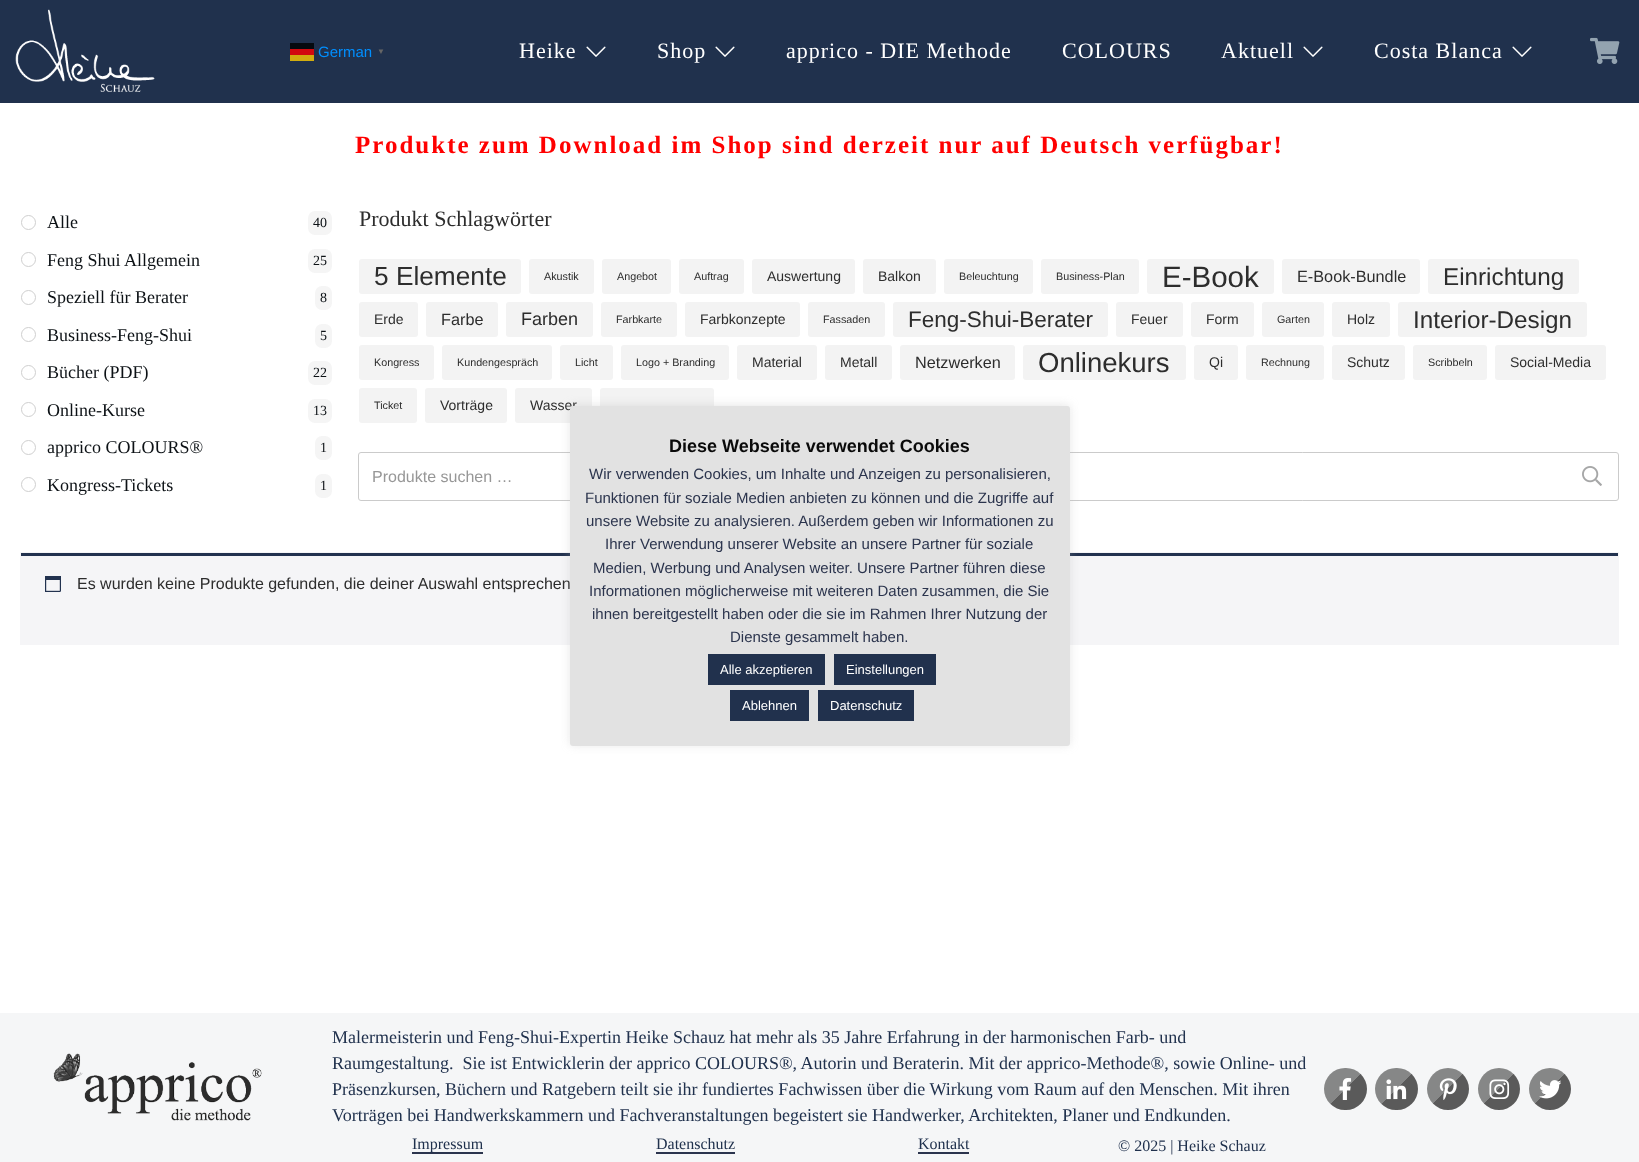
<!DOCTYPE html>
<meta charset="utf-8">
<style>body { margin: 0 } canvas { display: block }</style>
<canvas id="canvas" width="1639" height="1162"></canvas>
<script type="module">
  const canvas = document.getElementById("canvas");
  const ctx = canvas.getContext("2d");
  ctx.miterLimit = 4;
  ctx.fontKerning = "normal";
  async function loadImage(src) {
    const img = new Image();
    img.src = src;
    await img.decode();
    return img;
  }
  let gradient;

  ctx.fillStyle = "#ffffff";
  ctx.fillRect(0, 0, 1639, 1162);
  ctx.fillStyle = "#20314d";
  ctx.fillRect(0, 0, 1639, 103);
  ctx.drawImage(await loadImage("img1.png"), 15, 9, 140, 83);
  ctx.font = "15px Liberation Sans";
  ctx.fillStyle = "#008fff";
  ctx.fillText("German", 318, 57);
  ctx.fillStyle = "#d2ad0f";
  ctx.fillRect(290, 55, 24, 6);
  ctx.fillStyle = "#060a0f";
  ctx.fillRect(290, 43, 24, 6);
  ctx.fillStyle = "#d20a0f";
  ctx.fillRect(290, 49, 24, 6);
  ctx.font = "bold 8px Liberation Sans";
  ctx.fillStyle = "#666666";
  ctx.fillText("▼", 377, 54);
  ctx.letterSpacing = "1px";
  ctx.font = "22px Liberation Serif";
  ctx.fillStyle = "#ffffff";
  ctx.fillText("Heike", 519, 58);
  ctx.drawImage(await loadImage("img2.png"), 586, 46, 20, 11);
  ctx.fillText("Shop", 657, 58);
  ctx.drawImage(await loadImage("img2.png"), 715, 46, 20, 11);
  ctx.fillText("apprico - DIE Methode", 786, 58);
  ctx.fillText("COLOURS", 1062, 58);
  ctx.fillText("Aktuell", 1221, 58);
  ctx.drawImage(await loadImage("img2.png"), 1303, 46, 20, 11);
  ctx.fillText("Costa Blanca", 1374, 58);
  ctx.drawImage(await loadImage("img2.png"), 1512, 46, 20, 11);
  ctx.drawImage(await loadImage("img3.png"), 1590, 37, 30, 27);
  ctx.letterSpacing = "2px";
  ctx.font = "bold 25px Liberation Serif";
  ctx.fillStyle = "#ff0000";
  ctx.fillText("Produkte zum Download im Shop sind derzeit nur auf Deutsch verfügbar!", 355, 153);
  ctx.beginPath();
  ctx.arc(28.5, 222.5, 7, 0, Math.PI * 2);
  ctx.strokeStyle = "#cfcfcf";
  ctx.stroke();
  ctx.letterSpacing = "0px";
  ctx.font = "18px Liberation Serif";
  ctx.fillStyle = "#0c1115";
  ctx.fillText("Alle", 47, 228);
  ctx.fillStyle = "#f5f5f5";
  ctx.beginPath();
  ctx.roundRect(308, 211, 24, 24, 7);
  ctx.fill();
  ctx.font = "14px Liberation Serif";
  ctx.fillStyle = "#0c1115";
  ctx.fillText("40", 313, 227);
  ctx.beginPath();
  ctx.arc(28.5, 259.5, 7, 0, Math.PI * 2);
  ctx.stroke();
  ctx.font = "18px Liberation Serif";
  ctx.fillText("Feng Shui Allgemein", 47, 266);
  ctx.fillStyle = "#f5f5f5";
  ctx.beginPath();
  ctx.roundRect(308, 249, 24, 24, 7);
  ctx.fill();
  ctx.font = "14px Liberation Serif";
  ctx.fillStyle = "#0c1115";
  ctx.fillText("25", 313, 265);
  ctx.beginPath();
  ctx.arc(28.5, 297.5, 7, 0, Math.PI * 2);
  ctx.stroke();
  ctx.font = "18px Liberation Serif";
  ctx.fillText("Speziell für Berater", 47, 303);
  ctx.fillStyle = "#f5f5f5";
  ctx.beginPath();
  ctx.roundRect(315, 286, 17, 24, 7);
  ctx.fill();
  ctx.font = "14px Liberation Serif";
  ctx.fillStyle = "#0c1115";
  ctx.fillText("8", 320, 302);
  ctx.beginPath();
  ctx.arc(28.5, 334.5, 7, 0, Math.PI * 2);
  ctx.stroke();
  ctx.font = "18px Liberation Serif";
  ctx.fillText("Business-Feng-Shui", 47, 341);
  ctx.fillStyle = "#f5f5f5";
  ctx.beginPath();
  ctx.roundRect(315, 324, 17, 24, 7);
  ctx.fill();
  ctx.font = "14px Liberation Serif";
  ctx.fillStyle = "#0c1115";
  ctx.fillText("5", 320, 340);
  ctx.beginPath();
  ctx.arc(28.5, 372.5, 7, 0, Math.PI * 2);
  ctx.stroke();
  ctx.font = "18px Liberation Serif";
  ctx.fillText("Bücher (PDF)", 47, 378);
  ctx.fillStyle = "#f5f5f5";
  ctx.beginPath();
  ctx.roundRect(308, 361, 24, 24, 7);
  ctx.fill();
  ctx.font = "14px Liberation Serif";
  ctx.fillStyle = "#0c1115";
  ctx.fillText("22", 313, 377);
  ctx.beginPath();
  ctx.arc(28.5, 409.5, 7, 0, Math.PI * 2);
  ctx.stroke();
  ctx.font = "18px Liberation Serif";
  ctx.fillText("Online-Kurse", 47, 416);
  ctx.fillStyle = "#f5f5f5";
  ctx.beginPath();
  ctx.roundRect(308, 399, 24, 24, 7);
  ctx.fill();
  ctx.font = "14px Liberation Serif";
  ctx.fillStyle = "#0c1115";
  ctx.fillText("13", 313, 415);
  ctx.beginPath();
  ctx.arc(28.5, 447.5, 7, 0, Math.PI * 2);
  ctx.stroke();
  ctx.font = "18px Liberation Serif";
  ctx.fillText("apprico COLOURS®", 47, 453);
  ctx.fillStyle = "#f5f5f5";
  ctx.beginPath();
  ctx.roundRect(315, 436, 17, 24, 7);
  ctx.fill();
  ctx.font = "14px Liberation Serif";
  ctx.fillStyle = "#0c1115";
  ctx.fillText("1", 320, 452);
  ctx.beginPath();
  ctx.arc(28.5, 484.5, 7, 0, Math.PI * 2);
  ctx.stroke();
  ctx.font = "18px Liberation Serif";
  ctx.fillText("Kongress-Tickets", 47, 491);
  ctx.fillStyle = "#f5f5f5";
  ctx.beginPath();
  ctx.roundRect(315, 474, 17, 24, 7);
  ctx.fill();
  ctx.font = "14px Liberation Serif";
  ctx.fillStyle = "#0c1115";
  ctx.fillText("1", 320, 490);
  ctx.font = "22px Liberation Serif";
  ctx.fillStyle = "#2d2d2d";
  ctx.fillText("Produkt Schlagwörter", 359, 226);
  ctx.fillStyle = "#f3f3f3";
  ctx.beginPath();
  ctx.roundRect(359, 259, 162, 35, 3);
  ctx.fill();
  ctx.font = "26.25px Liberation Sans";
  ctx.fillStyle = "#2d2d2d";
  ctx.fillText("5 Elemente", 374, 285);
  ctx.fillStyle = "#f3f3f3";
  ctx.beginPath();
  ctx.roundRect(529, 259, 65, 35, 3);
  ctx.fill();
  ctx.font = "10.75px Liberation Sans";
  ctx.fillStyle = "#2d2d2d";
  ctx.fillText("Akustik", 544, 280);
  ctx.fillStyle = "#f3f3f3";
  ctx.beginPath();
  ctx.roundRect(602, 259, 69, 35, 3);
  ctx.fill();
  ctx.fillStyle = "#2d2d2d";
  ctx.fillText("Angebot", 617, 280);
  ctx.fillStyle = "#f3f3f3";
  ctx.beginPath();
  ctx.roundRect(679, 259, 65, 35, 3);
  ctx.fill();
  ctx.fillStyle = "#2d2d2d";
  ctx.fillText("Auftrag", 694, 280);
  ctx.fillStyle = "#f3f3f3";
  ctx.beginPath();
  ctx.roundRect(752, 259, 103, 35, 3);
  ctx.fill();
  ctx.font = "14px Liberation Sans";
  ctx.fillStyle = "#2d2d2d";
  ctx.fillText("Auswertung", 767, 281);
  ctx.fillStyle = "#f3f3f3";
  ctx.beginPath();
  ctx.roundRect(863, 259, 73, 35, 3);
  ctx.fill();
  ctx.fillStyle = "#2d2d2d";
  ctx.fillText("Balkon", 878, 281);
  ctx.fillStyle = "#f3f3f3";
  ctx.beginPath();
  ctx.roundRect(944, 259, 89, 35, 3);
  ctx.fill();
  ctx.font = "10.75px Liberation Sans";
  ctx.fillStyle = "#2d2d2d";
  ctx.fillText("Beleuchtung", 959, 280);
  ctx.fillStyle = "#f3f3f3";
  ctx.beginPath();
  ctx.roundRect(1041, 259, 98, 35, 3);
  ctx.fill();
  ctx.fillStyle = "#2d2d2d";
  ctx.fillText("Business-Plan", 1056, 280);
  ctx.fillStyle = "#f3f3f3";
  ctx.beginPath();
  ctx.roundRect(1147, 259, 127, 35, 3);
  ctx.fill();
  ctx.font = "29.5px Liberation Sans";
  ctx.fillStyle = "#2d2d2d";
  ctx.fillText("E-Book", 1162, 287);
  ctx.fillStyle = "#f3f3f3";
  ctx.beginPath();
  ctx.roundRect(1282, 259, 138, 35, 3);
  ctx.fill();
  ctx.font = "16.25px Liberation Sans";
  ctx.fillStyle = "#2d2d2d";
  ctx.fillText("E-Book-Bundle", 1297, 282);
  ctx.fillStyle = "#f3f3f3";
  ctx.beginPath();
  ctx.roundRect(1428, 259, 151, 35, 3);
  ctx.fill();
  ctx.font = "24.25px Liberation Sans";
  ctx.fillStyle = "#2d2d2d";
  ctx.fillText("Einrichtung", 1443, 285);
  ctx.fillStyle = "#f3f3f3";
  ctx.beginPath();
  ctx.roundRect(359, 302, 59, 35, 3);
  ctx.fill();
  ctx.font = "14px Liberation Sans";
  ctx.fillStyle = "#2d2d2d";
  ctx.fillText("Erde", 374, 324);
  ctx.fillStyle = "#f3f3f3";
  ctx.beginPath();
  ctx.roundRect(426, 302, 72, 35, 3);
  ctx.fill();
  ctx.font = "16.25px Liberation Sans";
  ctx.fillStyle = "#2d2d2d";
  ctx.fillText("Farbe", 441, 325);
  ctx.fillStyle = "#f3f3f3";
  ctx.beginPath();
  ctx.roundRect(506, 302, 87, 35, 3);
  ctx.fill();
  ctx.font = "18px Liberation Sans";
  ctx.fillStyle = "#2d2d2d";
  ctx.fillText("Farben", 521, 325);
  ctx.fillStyle = "#f3f3f3";
  ctx.beginPath();
  ctx.roundRect(601, 302, 76, 35, 3);
  ctx.fill();
  ctx.font = "10.75px Liberation Sans";
  ctx.fillStyle = "#2d2d2d";
  ctx.fillText("Farbkarte", 616, 323);
  ctx.fillStyle = "#f3f3f3";
  ctx.beginPath();
  ctx.roundRect(685, 302, 115, 35, 3);
  ctx.fill();
  ctx.font = "14px Liberation Sans";
  ctx.fillStyle = "#2d2d2d";
  ctx.fillText("Farbkonzepte", 700, 324);
  ctx.fillStyle = "#f3f3f3";
  ctx.beginPath();
  ctx.roundRect(808, 302, 77, 35, 3);
  ctx.fill();
  ctx.font = "10.75px Liberation Sans";
  ctx.fillStyle = "#2d2d2d";
  ctx.fillText("Fassaden", 823, 323);
  ctx.fillStyle = "#f3f3f3";
  ctx.beginPath();
  ctx.roundRect(893, 302, 215, 35, 3);
  ctx.fill();
  ctx.font = "22.5px Liberation Sans";
  ctx.fillStyle = "#2d2d2d";
  ctx.fillText("Feng-Shui-Berater", 908, 327);
  ctx.fillStyle = "#f3f3f3";
  ctx.beginPath();
  ctx.roundRect(1116, 302, 67, 35, 3);
  ctx.fill();
  ctx.font = "14px Liberation Sans";
  ctx.fillStyle = "#2d2d2d";
  ctx.fillText("Feuer", 1131, 324);
  ctx.fillStyle = "#f3f3f3";
  ctx.beginPath();
  ctx.roundRect(1191, 302, 63, 35, 3);
  ctx.fill();
  ctx.fillStyle = "#2d2d2d";
  ctx.fillText("Form", 1206, 324);
  ctx.fillStyle = "#f3f3f3";
  ctx.beginPath();
  ctx.roundRect(1262, 302, 62, 35, 3);
  ctx.fill();
  ctx.font = "10.75px Liberation Sans";
  ctx.fillStyle = "#2d2d2d";
  ctx.fillText("Garten", 1277, 323);
  ctx.fillStyle = "#f3f3f3";
  ctx.beginPath();
  ctx.roundRect(1332, 302, 58, 35, 3);
  ctx.fill();
  ctx.font = "14px Liberation Sans";
  ctx.fillStyle = "#2d2d2d";
  ctx.fillText("Holz", 1347, 324);
  ctx.fillStyle = "#f3f3f3";
  ctx.beginPath();
  ctx.roundRect(1398, 302, 189, 35, 3);
  ctx.fill();
  ctx.font = "24.25px Liberation Sans";
  ctx.fillStyle = "#2d2d2d";
  ctx.fillText("Interior-Design", 1413, 328);
  ctx.fillStyle = "#f3f3f3";
  ctx.beginPath();
  ctx.roundRect(359, 345, 75, 35, 3);
  ctx.fill();
  ctx.font = "10.75px Liberation Sans";
  ctx.fillStyle = "#2d2d2d";
  ctx.fillText("Kongress", 374, 366);
  ctx.fillStyle = "#f3f3f3";
  ctx.beginPath();
  ctx.roundRect(442, 345, 110, 35, 3);
  ctx.fill();
  ctx.fillStyle = "#2d2d2d";
  ctx.fillText("Kundengespräch", 457, 366);
  ctx.fillStyle = "#f3f3f3";
  ctx.beginPath();
  ctx.roundRect(560, 345, 53, 35, 3);
  ctx.fill();
  ctx.fillStyle = "#2d2d2d";
  ctx.fillText("Licht", 575, 366);
  ctx.fillStyle = "#f3f3f3";
  ctx.beginPath();
  ctx.roundRect(621, 345, 108, 35, 3);
  ctx.fill();
  ctx.fillStyle = "#2d2d2d";
  ctx.fillText("Logo + Branding", 636, 366);
  ctx.fillStyle = "#f3f3f3";
  ctx.beginPath();
  ctx.roundRect(737, 345, 80, 35, 3);
  ctx.fill();
  ctx.font = "14px Liberation Sans";
  ctx.fillStyle = "#2d2d2d";
  ctx.fillText("Material", 752, 367);
  ctx.fillStyle = "#f3f3f3";
  ctx.beginPath();
  ctx.roundRect(825, 345, 67, 35, 3);
  ctx.fill();
  ctx.fillStyle = "#2d2d2d";
  ctx.fillText("Metall", 840, 367);
  ctx.fillStyle = "#f3f3f3";
  ctx.beginPath();
  ctx.roundRect(900, 345, 115, 35, 3);
  ctx.fill();
  ctx.font = "16.25px Liberation Sans";
  ctx.fillStyle = "#2d2d2d";
  ctx.fillText("Netzwerken", 915, 368);
  ctx.fillStyle = "#f3f3f3";
  ctx.beginPath();
  ctx.roundRect(1023, 345, 163, 35, 3);
  ctx.fill();
  ctx.font = "27.5px Liberation Sans";
  ctx.fillStyle = "#2d2d2d";
  ctx.fillText("Onlinekurs", 1038, 372);
  ctx.fillStyle = "#f3f3f3";
  ctx.beginPath();
  ctx.roundRect(1194, 345, 44, 35, 3);
  ctx.fill();
  ctx.font = "14px Liberation Sans";
  ctx.fillStyle = "#2d2d2d";
  ctx.fillText("Qi", 1209, 367);
  ctx.fillStyle = "#f3f3f3";
  ctx.beginPath();
  ctx.roundRect(1246, 345, 78, 35, 3);
  ctx.fill();
  ctx.font = "10.75px Liberation Sans";
  ctx.fillStyle = "#2d2d2d";
  ctx.fillText("Rechnung", 1261, 366);
  ctx.fillStyle = "#f3f3f3";
  ctx.beginPath();
  ctx.roundRect(1332, 345, 73, 35, 3);
  ctx.fill();
  ctx.font = "14px Liberation Sans";
  ctx.fillStyle = "#2d2d2d";
  ctx.fillText("Schutz", 1347, 367);
  ctx.fillStyle = "#f3f3f3";
  ctx.beginPath();
  ctx.roundRect(1413, 345, 74, 35, 3);
  ctx.fill();
  ctx.font = "10.75px Liberation Sans";
  ctx.fillStyle = "#2d2d2d";
  ctx.fillText("Scribbeln", 1428, 366);
  ctx.fillStyle = "#f3f3f3";
  ctx.beginPath();
  ctx.roundRect(1495, 345, 111, 35, 3);
  ctx.fill();
  ctx.font = "14px Liberation Sans";
  ctx.fillStyle = "#2d2d2d";
  ctx.fillText("Social-Media", 1510, 367);
  ctx.fillStyle = "#f3f3f3";
  ctx.beginPath();
  ctx.roundRect(359, 388, 58, 35, 3);
  ctx.fill();
  ctx.font = "10.75px Liberation Sans";
  ctx.fillStyle = "#2d2d2d";
  ctx.fillText("Ticket", 374, 409);
  ctx.fillStyle = "#f3f3f3";
  ctx.beginPath();
  ctx.roundRect(425, 388, 82, 35, 3);
  ctx.fill();
  ctx.font = "14px Liberation Sans";
  ctx.fillStyle = "#2d2d2d";
  ctx.fillText("Vorträge", 440, 410);
  ctx.fillStyle = "#f3f3f3";
  ctx.beginPath();
  ctx.roundRect(515, 388, 77, 35, 3);
  ctx.fill();
  ctx.fillStyle = "#2d2d2d";
  ctx.fillText("Wasser", 530, 410);
  ctx.fillStyle = "#f3f3f3";
  ctx.beginPath();
  ctx.roundRect(600, 388, 114, 35, 3);
  ctx.fill();
  ctx.beginPath();
  ctx.roundRect(358.5, 452.5, 1260, 48, 2.5);
  ctx.strokeStyle = "#cbcbcb";
  ctx.stroke();
  ctx.font = "16px Liberation Sans";
  ctx.fillStyle = "#979797";
  ctx.fillText("Produkte suchen …", 372, 482);
  ctx.drawImage(await loadImage("img4.png"), 1582, 466, 20, 20);
  ctx.fillStyle = "#f5f5f7";
  ctx.fillRect(20, 552, 1599, 93);
  ctx.fillStyle = "#22324f";
  ctx.fillRect(21, 553, 1597, 3);
  ctx.drawImage(await loadImage("img5.png"), 45, 576, 16, 16);
  ctx.fillStyle = "#2d2d2d";
  ctx.fillText("Es wurden keine Produkte gefunden, die deiner Auswahl entsprechen", 77, 589);
  ctx.fillStyle = "#f5f6f7";
  ctx.fillRect(0, 1013, 1639, 149);
  ctx.drawImage(await loadImage("img6.png"), 53, 1053, 209, 68);
  ctx.font = "18px Liberation Serif";
  ctx.fillStyle = "#20314d";
  ctx.fillText("Malermeisterin und Feng-Shui-Expertin Heike Schauz hat mehr als 35 Jahre Erfahrung in der harmonischen Farb- und", 332, 1043);
  ctx.fillText("Raumgestaltung.  Sie ist Entwicklerin der apprico COLOURS®, Autorin und Beraterin. Mit der apprico-Methode®, sowie Online- und", 332, 1069);
  ctx.fillText("Präsenzkursen, Büchern und Ratgebern teilt sie ihr fundiertes Fachwissen über die Wirkung vom Raum auf den Menschen. Mit ihren", 332, 1095);
  ctx.fillText("Vorträgen bei Handwerkskammern und Fachveranstaltungen begeistert sie Handwerker, Architekten, Planer und Endkunden.", 332, 1121);
  ctx.fillStyle = "#2b344d";
  ctx.fillRect(412, 1152, 71, 2);
  ctx.font = "16px Liberation Serif";
  ctx.fillStyle = "#20314d";
  ctx.fillText("Impressum", 412, 1149);
  ctx.fillText("Datenschutz", 656, 1149);
  ctx.fillStyle = "#2b344d";
  ctx.fillRect(656, 1152, 79, 2);
  ctx.fillStyle = "#20314d";
  ctx.fillText("Kontakt", 918, 1149);
  ctx.fillStyle = "#2b344d";
  ctx.fillRect(918, 1152, 51, 2);
  ctx.fillStyle = "#20314d";
  ctx.fillText("© 2025 | Heike Schauz", 1118, 1151);
  gradient = ctx.createLinearGradient(1325, 1068, 1366, 1110);
  gradient.addColorStop(0.5, "#868787");
  gradient.addColorStop(0.5, "#5a5a5a");
  ctx.fillStyle = gradient;
  ctx.beginPath();
  ctx.roundRect(1324, 1068, 43, 42, 21);
  ctx.fill();
  ctx.drawImage(await loadImage("img7.png"), 1339, 1078, 13, 22);
  gradient = ctx.createLinearGradient(1376, 1068, 1417, 1110);
  gradient.addColorStop(0.5, "#868787");
  gradient.addColorStop(0.5, "#5a5a5a");
  ctx.fillStyle = gradient;
  ctx.beginPath();
  ctx.roundRect(1375, 1068, 43, 42, 21);
  ctx.fill();
  ctx.drawImage(await loadImage("img8.png"), 1386, 1079, 21, 21);
  gradient = ctx.createLinearGradient(1427, 1068, 1469, 1110);
  gradient.addColorStop(0.5, "#868787");
  gradient.addColorStop(0.5, "#5a5a5a");
  ctx.fillStyle = gradient;
  ctx.beginPath();
  ctx.arc(1448, 1089, 21, 0, Math.PI * 2);
  ctx.fill();
  ctx.drawImage(await loadImage("img9.png"), 1439, 1078, 18, 22);
  gradient = ctx.createLinearGradient(1478, 1068, 1520, 1110);
  gradient.addColorStop(0.5, "#868787");
  gradient.addColorStop(0.5, "#5a5a5a");
  ctx.fillStyle = gradient;
  ctx.beginPath();
  ctx.arc(1499, 1089, 21, 0, Math.PI * 2);
  ctx.fill();
  ctx.drawImage(await loadImage("img10.png"), 1489, 1079, 21, 20);
  gradient = ctx.createLinearGradient(1529, 1068, 1571, 1110);
  gradient.addColorStop(0.5, "#868787");
  gradient.addColorStop(0.5, "#5a5a5a");
  ctx.fillStyle = gradient;
  ctx.beginPath();
  ctx.arc(1550, 1089, 21, 0, Math.PI * 2);
  ctx.fill();
  ctx.drawImage(await loadImage("img11.png"), 1539, 1080, 22, 19);
  ctx.fillStyle = "rgba(172, 171, 171, 0.3)";
  ctx.filter = "blur(5px)";
  ctx.beginPath();
  ctx.roundRect(570, 405, 500, 340, 3);
  ctx.fill();
  ctx.filter = "none";
  ctx.fillStyle = "#e2e2e2";
  ctx.beginPath();
  ctx.roundRect(570, 406, 500, 340, 3);
  ctx.fill();
  ctx.font = "bold 18px Liberation Sans";
  ctx.fillStyle = "#0a0a0a";
  ctx.fillText("Diese Webseite verwendet Cookies", 669, 452);
  ctx.font = "15px Liberation Sans";
  ctx.fillStyle = "#2b344d";
  ctx.fillText("Wir verwenden Cookies, um Inhalte und Anzeigen zu personalisieren,", 589, 479);
  ctx.fillText("Funktionen für soziale Medien anbieten zu können und die Zugriffe auf", 585, 503);
  ctx.fillText("unsere Website zu analysieren. Außerdem geben wir Informationen zu", 586, 526);
  ctx.fillText("Ihrer Verwendung unserer Website an unsere Partner für soziale", 605, 549);
  ctx.fillText("Medien, Werbung und Analysen weiter. Unsere Partner führen diese", 593, 573);
  ctx.fillText("Informationen möglicherweise mit weiteren Daten zusammen, die Sie", 589, 596);
  ctx.fillText("ihnen bereitgestellt haben oder die sie im Rahmen Ihrer Nutzung der", 592, 619);
  ctx.fillText("Dienste gesammelt haben.", 730, 642);
  ctx.fillStyle = "#21314d";
  ctx.fillRect(708, 654, 117, 31);
  ctx.font = "13px Liberation Sans";
  ctx.fillStyle = "#ffffff";
  ctx.fillText("Alle akzeptieren", 720, 674);
  ctx.fillStyle = "#21314d";
  ctx.fillRect(834, 654, 102, 31);
  ctx.fillStyle = "#ffffff";
  ctx.fillText("Einstellungen", 846, 674);
  ctx.fillStyle = "#21314d";
  ctx.fillRect(730, 690, 79, 31);
  ctx.fillStyle = "#ffffff";
  ctx.fillText("Ablehnen", 742, 710);
  ctx.fillStyle = "#21314d";
  ctx.fillRect(818, 690, 96, 31);
  ctx.fillStyle = "#ffffff";
  ctx.fillText("Datenschutz", 830, 710);
</script>
